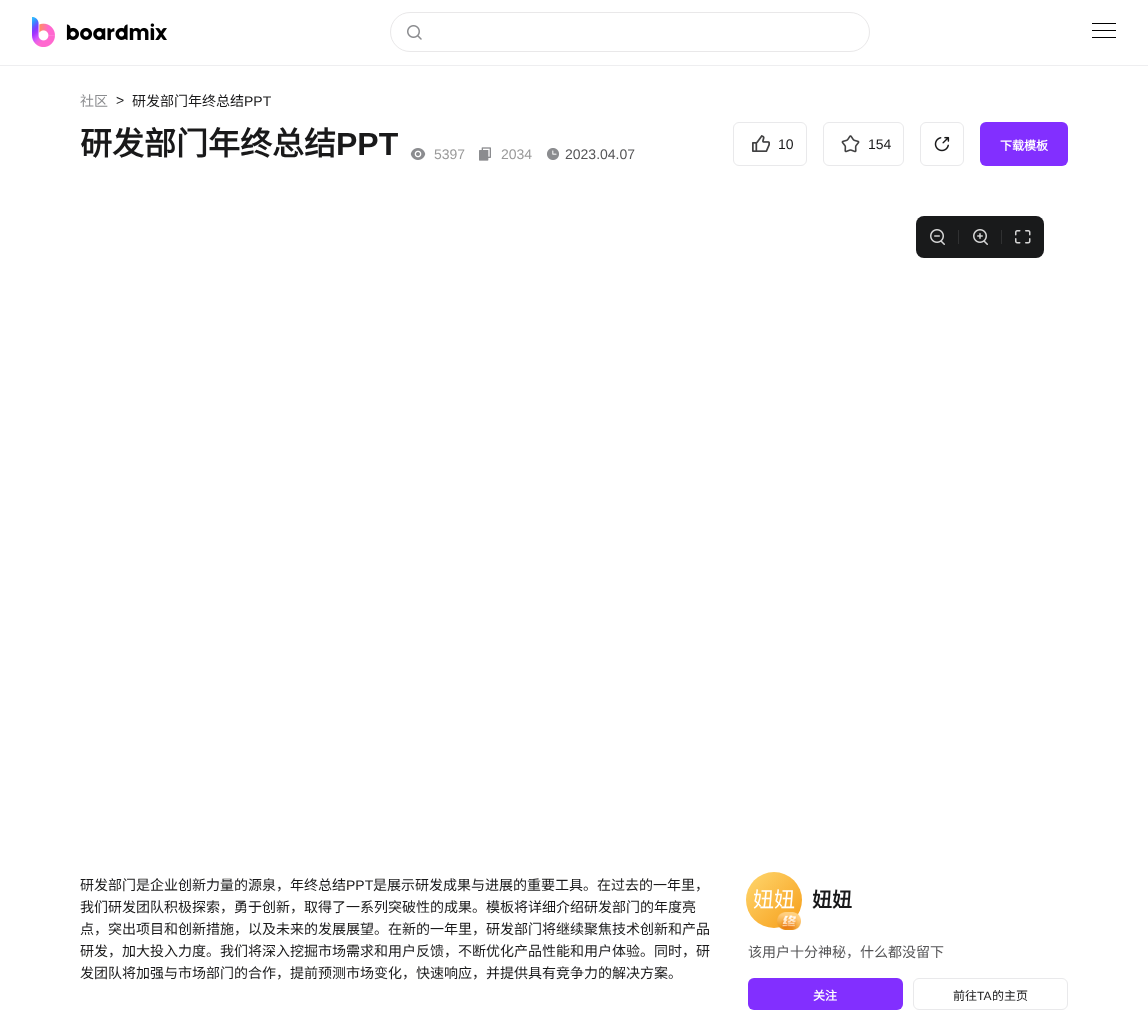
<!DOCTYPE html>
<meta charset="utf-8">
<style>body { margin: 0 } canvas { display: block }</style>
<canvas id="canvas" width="1148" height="1027"></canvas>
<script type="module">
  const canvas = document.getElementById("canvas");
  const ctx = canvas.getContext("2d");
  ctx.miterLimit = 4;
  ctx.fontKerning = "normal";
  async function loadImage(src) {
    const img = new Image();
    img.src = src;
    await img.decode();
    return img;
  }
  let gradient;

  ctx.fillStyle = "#ffffff";
  ctx.fillRect(0, 0, 1148, 1027);
  ctx.fillStyle = "#eeeef0";
  ctx.fillRect(0, 65, 1148, 1);
  ctx.drawImage(await loadImage("img1.png"), 32, 17, 135, 30);
  ctx.beginPath();
  ctx.roundRect(390.5, 12.5, 479, 39, 19.5);
  ctx.strokeStyle = "#e9e8e9";
  ctx.stroke();
  ctx.drawImage(await loadImage("img2.png"), 407, 25, 15, 15);
  ctx.fillStyle = "#000000";
  ctx.fillRect(1092, 23, 24, 1);
  ctx.fillRect(1092, 30, 24, 1);
  ctx.fillRect(1092, 37, 24, 1);
  ctx.font = "14px Noto Sans CJK SC";
  ctx.fillStyle = "#8b8c8f";
  ctx.fillText("社区", 80, 106);
  ctx.font = "14px Liberation Sans";
  ctx.fillStyle = "#19191a";
  ctx.fillText(">", 116, 105);
  ctx.font = "14px Noto Sans CJK SC";
  ctx.fillText("研发部门年终总结", 132, 106);
  ctx.font = "14px Liberation Sans";
  ctx.fillText("PPT", 244, 106);
  ctx.font = "bold 32px Noto Sans CJK SC";
  ctx.fillText("研发部门年终总结", 80, 155);
  ctx.font = "bold 32px Liberation Sans";
  ctx.fillText("PPT", 336, 155);
  ctx.drawImage(await loadImage("img3.png"), 410, 148, 16, 12);
  ctx.font = "14px Liberation Sans";
  ctx.fillStyle = "#999999";
  ctx.fillText("5397", 434, 159);
  ctx.drawImage(await loadImage("img4.png"), 479, 147, 12, 14);
  ctx.fillText("2034", 501, 159);
  ctx.drawImage(await loadImage("img5.png"), 547, 148, 12, 12);
  ctx.fillStyle = "#555557";
  ctx.fillText("2023.04.07", 565, 159);
  ctx.beginPath();
  ctx.roundRect(733.5, 122.5, 73, 43, 5.5);
  ctx.strokeStyle = "#e9e9eb";
  ctx.stroke();
  ctx.drawImage(await loadImage("img6.png"), 752, 135, 18, 17);
  ctx.fillStyle = "#19191a";
  ctx.fillText("10", 778, 149);
  ctx.beginPath();
  ctx.roundRect(823.5, 122.5, 80, 43, 5.5);
  ctx.stroke();
  ctx.drawImage(await loadImage("img7.png"), 841, 135, 19, 18);
  ctx.fillText("154", 868, 149);
  ctx.beginPath();
  ctx.roundRect(920.5, 122.5, 43, 43, 5.5);
  ctx.stroke();
  ctx.drawImage(await loadImage("img8.png"), 934, 136, 16, 16);
  ctx.fillStyle = "#822fff";
  ctx.beginPath();
  ctx.roundRect(980, 122, 88, 44, 6);
  ctx.fill();
  ctx.font = "bold 12px Noto Sans CJK SC";
  ctx.fillStyle = "#ffffff";
  ctx.fillText("下载模板", 1000, 150);
  ctx.fillStyle = "#191a1b";
  ctx.beginPath();
  ctx.roundRect(916, 216, 128, 42, 8);
  ctx.fill();
  ctx.drawImage(await loadImage("img9.png"), 930, 229, 15, 16);
  ctx.fillStyle = "#303132";
  ctx.fillRect(958, 230, 1, 14);
  ctx.drawImage(await loadImage("img10.png"), 973, 229, 15, 16);
  ctx.fillRect(1001, 230, 1, 14);
  ctx.drawImage(await loadImage("img11.png"), 1015, 230, 16, 14);
  ctx.font = "14px Noto Sans CJK SC";
  ctx.fillStyle = "#19191a";
  ctx.fillText("研发部门是企业创新力量的源泉，年终总结", 80, 890);
  ctx.font = "14px Liberation Sans";
  ctx.fillText("PPT", 346, 890);
  ctx.font = "14px Noto Sans CJK SC";
  ctx.fillText("是展示研发成果与进展的重要工具。在过去的一年里，", 373, 890);
  ctx.fillText("我们研发团队积极探索，勇于创新，取得了一系列突破性的成果。模板将详细介绍研发部门的年度亮", 80, 912);
  ctx.fillText("点，突出项目和创新措施，以及未来的发展展望。在新的一年里，研发部门将继续聚焦技术创新和产品", 80, 934);
  ctx.fillText("研发，加大投入力度。我们将深入挖掘市场需求和用户反馈，不断优化产品性能和用户体验。同时，研", 80, 956);
  ctx.fillText("发团队将加强与市场部门的合作，提前预测市场变化，快速响应，并提供具有竞争力的解决方案。", 80, 978);
  gradient = ctx.createLinearGradient(746, 872, 802, 928);
  gradient.addColorStop(0, "#ffd76f");
  gradient.addColorStop(1, "#f69d18");
  ctx.fillStyle = gradient;
  ctx.beginPath();
  ctx.arc(774, 900, 28, 0, Math.PI * 2);
  ctx.fill();
  ctx.font = "21px Noto Sans CJK SC";
  ctx.fillStyle = "#ffffff";
  ctx.fillText("妞妞", 753, 907);
  ctx.drawImage(await loadImage("img12.png"), 777, 912, 24, 18);
  ctx.font = "bold 20px Noto Sans CJK SC";
  ctx.fillStyle = "#19191a";
  ctx.fillText("妞妞", 812, 907);
  ctx.font = "14px Noto Sans CJK SC";
  ctx.fillStyle = "#555557";
  ctx.fillText("该用户十分神秘，什么都没留下", 748, 957);
  ctx.fillStyle = "#822fff";
  ctx.beginPath();
  ctx.roundRect(748, 978, 155, 32, 6);
  ctx.fill();
  ctx.font = "bold 12px Noto Sans CJK SC";
  ctx.fillStyle = "#ffffff";
  ctx.fillText("关注", 813, 1000);
  ctx.beginPath();
  ctx.roundRect(913.5, 978.5, 154, 31, 5.5);
  ctx.stroke();
  ctx.font = "12px Noto Sans CJK SC";
  ctx.fillStyle = "#19191a";
  ctx.fillText("前往", 953, 1000);
  ctx.font = "12px Liberation Sans";
  ctx.fillText("TA", 977, 1000);
  ctx.font = "12px Noto Sans CJK SC";
  ctx.fillText("的主页", 992, 1000);
</script>
